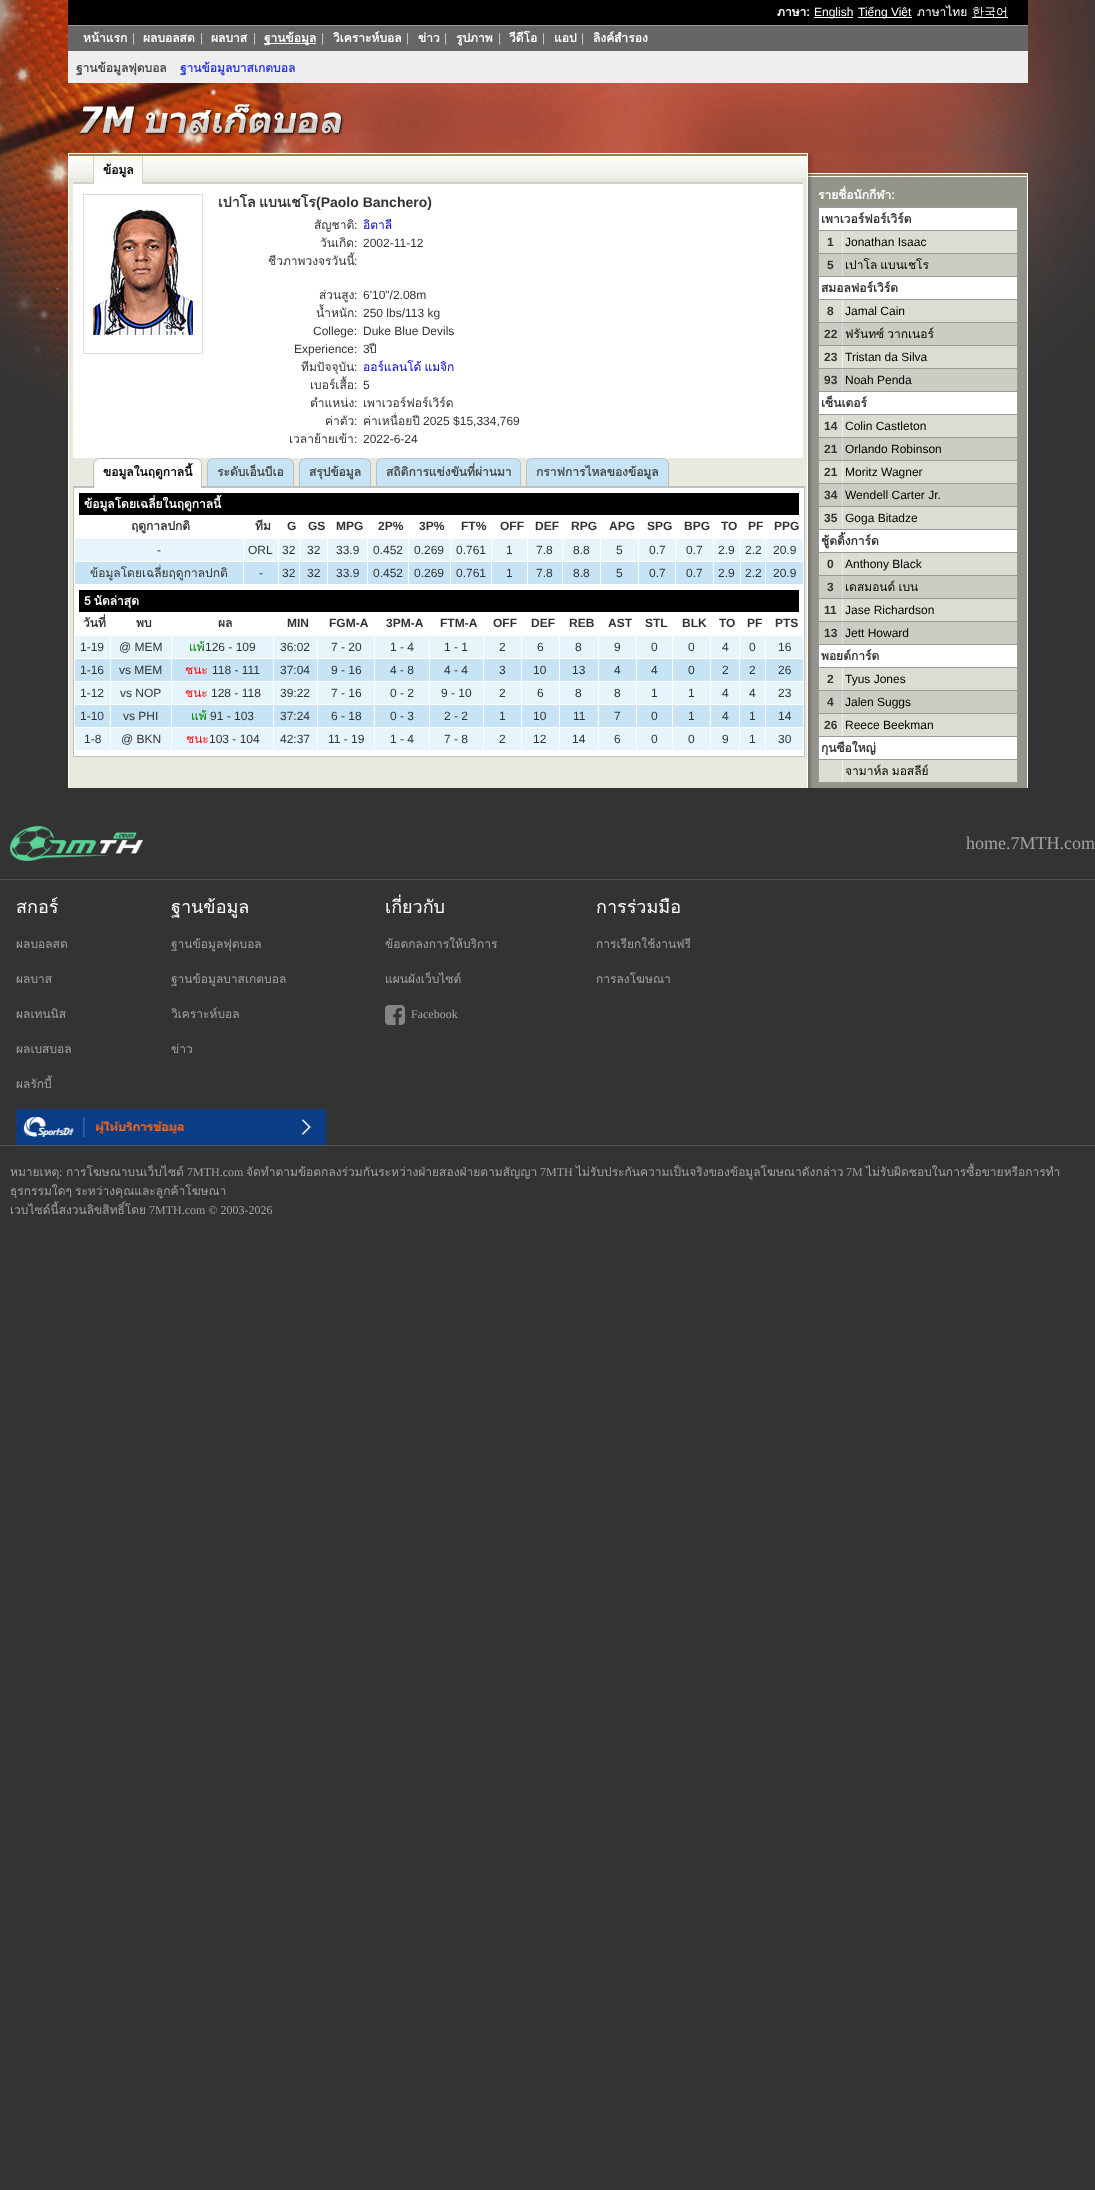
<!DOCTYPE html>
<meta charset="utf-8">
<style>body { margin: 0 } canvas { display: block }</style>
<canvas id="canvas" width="1095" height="2190"></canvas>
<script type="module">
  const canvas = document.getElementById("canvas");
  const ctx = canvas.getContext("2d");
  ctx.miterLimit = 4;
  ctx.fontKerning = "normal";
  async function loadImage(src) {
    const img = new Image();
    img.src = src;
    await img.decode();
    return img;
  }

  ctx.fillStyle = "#333333";
  ctx.fillRect(0, 0, 1095, 2190);
  ctx.drawImage(await loadImage("img1.png"), 0, 0, 1095, 496);
  ctx.fillStyle = "#000000";
  ctx.fillRect(68, 0, 960, 25);
  ctx.font = "bold 12px Loma";
  ctx.fillStyle = "#ffffff";
  ctx.fillText("ภาษา:", 777, 16);
  ctx.fillRect(814, 17, 39, 1);
  ctx.font = "12px Liberation Sans";
  ctx.fillText("English", 814, 16);
  ctx.fillRect(858, 17, 54, 1);
  ctx.fillText("Tiếng Việt", 858, 16);
  ctx.font = "12px Loma";
  ctx.fillText("ภาษาไทย", 917, 16);
  ctx.fillRect(972, 17, 36, 1);
  ctx.font = "500 12px WenQuanYi Zen Hei";
  ctx.fillText("한국어", 972, 16);
  ctx.fillStyle = "#666666";
  ctx.fillRect(68, 26, 960, 25);
  ctx.fillStyle = "#999999";
  ctx.fillRect(68, 25, 960, 1);
  ctx.font = "bold 12px Loma";
  ctx.fillStyle = "#ffffff";
  ctx.fillText("หน้าแรก", 83, 42);
  ctx.font = "12px Liberation Sans";
  ctx.fillStyle = "#cccccc";
  ctx.fillText("|", 132, 42);
  ctx.font = "bold 12px Loma";
  ctx.fillStyle = "#ffffff";
  ctx.fillText("ผลบอลสด", 143, 42);
  ctx.font = "12px Liberation Sans";
  ctx.fillStyle = "#cccccc";
  ctx.fillText("|", 200, 42);
  ctx.font = "bold 12px Loma";
  ctx.fillStyle = "#ffffff";
  ctx.fillText("ผลบาส", 211, 42);
  ctx.font = "12px Liberation Sans";
  ctx.fillStyle = "#cccccc";
  ctx.fillText("|", 253, 42);
  ctx.fillStyle = "#ffffff";
  ctx.fillRect(264, 43, 52, 1);
  ctx.font = "bold 12px Loma";
  ctx.fillText("ฐานข้อมูล", 264, 42);
  ctx.font = "12px Liberation Sans";
  ctx.fillStyle = "#cccccc";
  ctx.fillText("|", 321, 42);
  ctx.font = "bold 12px Loma";
  ctx.fillStyle = "#ffffff";
  ctx.fillText("วิเคราะห์บอล", 333, 42);
  ctx.font = "12px Liberation Sans";
  ctx.fillStyle = "#cccccc";
  ctx.fillText("|", 406, 42);
  ctx.font = "bold 12px Loma";
  ctx.fillStyle = "#ffffff";
  ctx.fillText("ข่าว", 418, 42);
  ctx.font = "12px Liberation Sans";
  ctx.fillStyle = "#cccccc";
  ctx.fillText("|", 444, 42);
  ctx.font = "bold 12px Loma";
  ctx.fillStyle = "#ffffff";
  ctx.fillText("รูปภาพ", 456, 42);
  ctx.font = "12px Liberation Sans";
  ctx.fillStyle = "#cccccc";
  ctx.fillText("|", 498, 42);
  ctx.font = "bold 12px Loma";
  ctx.fillStyle = "#ffffff";
  ctx.fillText("วีดีโอ", 509, 42);
  ctx.font = "12px Liberation Sans";
  ctx.fillStyle = "#cccccc";
  ctx.fillText("|", 542, 42);
  ctx.font = "bold 12px Loma";
  ctx.fillStyle = "#ffffff";
  ctx.fillText("แอป", 554, 42);
  ctx.font = "12px Liberation Sans";
  ctx.fillStyle = "#cccccc";
  ctx.fillText("|", 581, 42);
  ctx.font = "bold 12px Loma";
  ctx.fillStyle = "#ffffff";
  ctx.fillText("ลิงค์สำรอง", 593, 42);
  ctx.fillStyle = "#eeeeee";
  ctx.fillRect(68, 52, 960, 31);
  ctx.fillStyle = "#eff0f0";
  ctx.fillRect(68, 51, 960, 1);
  ctx.fillStyle = "#4b4b4b";
  ctx.fillText("ฐานข้อมูลฟุตบอล", 76, 72);
  ctx.fillStyle = "#2c39e2";
  ctx.fillText("ฐานข้อมูลบาสเกตบอล", 180, 72);
  ctx.drawImage(await loadImage("img2.png"), 79, 103, 265, 33);
  ctx.drawImage(await loadImage("img3.png"), 68, 177, 960, 611);
  ctx.drawImage(await loadImage("img4.png"), 69, 153, 738, 25);
  ctx.fillStyle = "#ffffff";
  ctx.fillRect(807, 153, 1, 24);
  ctx.fillRect(68, 153, 1, 24);
  ctx.fillStyle = "#d1d1c8";
  ctx.fillRect(73, 182, 730, 2);
  ctx.drawImage(await loadImage("img5.png"), 93, 156, 49, 28);
  ctx.fillStyle = "#d3d3cb";
  ctx.fillRect(142, 156, 1, 28);
  ctx.fillStyle = "#000000";
  ctx.fillText("ข้อมูล", 103, 174);
  ctx.fillStyle = "#ffffff";
  ctx.fillRect(73, 184, 730, 274);
  ctx.strokeStyle = "#dddddd";
  ctx.strokeRect(83.5, 194.5, 119, 159);
  ctx.drawImage(await loadImage("img6.png"), 93, 209, 100, 126);
  ctx.font = "bold 14px Loma";
  ctx.fillStyle = "#333333";
  ctx.fillText("เปาโล", 218, 207);
  ctx.fillText("แบนเชโร", 259, 207);
  ctx.font = "bold 14px Liberation Sans";
  ctx.fillText("(Paolo Banchero)", 316, 207);
  ctx.font = "12px Loma";
  ctx.fillText("สัญชาติ", 314, 229);
  ctx.font = "12px Liberation Sans";
  ctx.fillText(":", 354, 229);
  ctx.font = "12px Loma";
  ctx.fillStyle = "#0000cc";
  ctx.fillText("อิตาลี", 363, 229);
  ctx.fillStyle = "#333333";
  ctx.fillText("วันเกิด", 320, 247);
  ctx.font = "12px Liberation Sans";
  ctx.fillText(":", 354, 247);
  ctx.fillText("2002-11-12", 363, 247);
  ctx.font = "12px Loma";
  ctx.fillText("ชีวภาพวงจรวันนี้", 268, 265);
  ctx.font = "12px Liberation Sans";
  ctx.fillText(":", 354, 265);
  ctx.font = "12px Loma";
  ctx.fillText("ส่วนสูง", 319, 299);
  ctx.font = "12px Liberation Sans";
  ctx.fillText(":", 354, 299);
  ctx.fillText("6'10\"/2.08m", 363, 299);
  ctx.font = "12px Loma";
  ctx.fillText("น้ำหนัก", 316, 317);
  ctx.font = "12px Liberation Sans";
  ctx.fillText(":", 354, 317);
  ctx.fillText("250 lbs/113 kg", 363, 317);
  ctx.fillText("College:", 313, 335);
  ctx.fillText("Duke Blue Devils", 363, 335);
  ctx.fillText("Experience:", 294, 353);
  ctx.fillText("3", 363, 353);
  ctx.font = "12px Loma";
  ctx.fillText("ปี", 369, 353);
  ctx.fillText("ทีมปัจจุบัน", 301, 371);
  ctx.font = "12px Liberation Sans";
  ctx.fillText(":", 354, 371);
  ctx.wordSpacing = "-1px";
  ctx.font = "12px Loma";
  ctx.fillStyle = "#0000cc";
  ctx.fillText("ออร์แลนโด้ แมจิก", 363, 371);
  ctx.wordSpacing = "0px";
  ctx.fillStyle = "#333333";
  ctx.fillText("เบอร์เสื้อ", 310, 389);
  ctx.font = "12px Liberation Sans";
  ctx.fillText(":", 354, 389);
  ctx.fillText("5", 363, 389);
  ctx.font = "12px Loma";
  ctx.fillText("ตำแหน่ง", 310, 407);
  ctx.font = "12px Liberation Sans";
  ctx.fillText(":", 354, 407);
  ctx.font = "12px Loma";
  ctx.fillText("เพาเวอร์ฟอร์เวิร์ด", 363, 407);
  ctx.fillText("ค่าตัว", 325, 425);
  ctx.font = "12px Liberation Sans";
  ctx.fillText(":", 354, 425);
  ctx.font = "12px Loma";
  ctx.fillText("ค่าเหนื่อยปี", 363, 425);
  ctx.font = "12px Liberation Sans";
  ctx.fillText("2025 $15,334,769", 423, 425);
  ctx.font = "12px Loma";
  ctx.fillText("เวลาย้ายเข้า", 289, 443);
  ctx.font = "12px Liberation Sans";
  ctx.fillText(":", 354, 443);
  ctx.fillText("2022-6-24", 363, 443);
  ctx.fillStyle = "#c0c0c0";
  ctx.fillRect(73, 486, 732, 2);
  ctx.drawImage(await loadImage("img7.png"), 100, 458, 102, 30);
  ctx.drawImage(await loadImage("img8.png"), 93, 458, 7, 30);
  ctx.font = "bold 12px Loma";
  ctx.fillStyle = "#000000";
  ctx.fillText("ขอมูลในฤดูกาลนี้", 103, 476);
  ctx.drawImage(await loadImage("img9.png"), 213, 458, 81, 28);
  ctx.drawImage(await loadImage("img10.png"), 207, 458, 6, 28);
  ctx.fillStyle = "#4b4b4b";
  ctx.fillText("ระดับเอ็นบีเอ", 217, 476);
  ctx.drawImage(await loadImage("img11.png"), 305, 458, 66, 28);
  ctx.drawImage(await loadImage("img10.png"), 299, 458, 6, 28);
  ctx.fillText("สรุปข้อมูล", 309, 476);
  ctx.drawImage(await loadImage("img12.png"), 382, 458, 139, 28);
  ctx.drawImage(await loadImage("img10.png"), 376, 458, 6, 28);
  ctx.fillText("สถิติการแข่งขันที่ผ่านมา", 386, 476);
  ctx.drawImage(await loadImage("img13.png"), 532, 458, 137, 28);
  ctx.drawImage(await loadImage("img10.png"), 526, 458, 6, 28);
  ctx.fillText("กราฟการไหลของข้อมูล", 536, 476);
  ctx.fillStyle = "#ffffff";
  ctx.fillRect(74, 488, 730, 268);
  ctx.fillStyle = "#c0c0c0";
  ctx.fillRect(804, 488, 1, 269);
  ctx.fillRect(73, 756, 732, 1);
  ctx.fillRect(73, 488, 1, 269);
  ctx.fillStyle = "#000000";
  ctx.fillRect(79, 493, 720, 22);
  ctx.fillStyle = "#ffffff";
  ctx.fillText("ข้อมูลโดยเฉลี่ยในฤดูกาลนี้", 84, 508);
  ctx.fillStyle = "#333333";
  ctx.fillText("ฤดูกาลปกติ", 131, 530);
  ctx.fillText("ทีม", 255, 530);
  ctx.font = "bold 12px Liberation Sans";
  ctx.fillText("G", 287, 530);
  ctx.fillText("GS", 308, 530);
  ctx.fillText("MPG", 336, 530);
  ctx.fillText("2P%", 378, 530);
  ctx.fillText("3P%", 419, 530);
  ctx.fillText("FT%", 461, 530);
  ctx.fillText("OFF", 500, 530);
  ctx.fillText("DEF", 535, 530);
  ctx.fillText("RPG", 571, 530);
  ctx.fillText("APG", 609, 530);
  ctx.fillText("SPG", 647, 530);
  ctx.fillText("BPG", 684, 530);
  ctx.fillText("TO", 721, 530);
  ctx.fillText("PF", 748, 530);
  ctx.fillText("PPG", 774, 530);
  ctx.fillStyle = "#e6f4fb";
  ctx.fillRect(75, 539, 168, 22);
  ctx.font = "12px Liberation Sans";
  ctx.fillStyle = "#333333";
  ctx.fillText("-", 157, 554);
  ctx.fillStyle = "#e6f4fb";
  ctx.fillRect(244, 539, 34, 22);
  ctx.fillStyle = "#333333";
  ctx.fillText("ORL", 248, 554);
  ctx.fillStyle = "#e6f4fb";
  ctx.fillRect(279, 539, 20, 22);
  ctx.fillStyle = "#333333";
  ctx.fillText("32", 282, 554);
  ctx.fillStyle = "#e6f4fb";
  ctx.fillRect(300, 539, 27, 22);
  ctx.fillStyle = "#333333";
  ctx.fillText("32", 307, 554);
  ctx.fillStyle = "#e6f4fb";
  ctx.fillRect(328, 539, 39, 22);
  ctx.fillStyle = "#333333";
  ctx.fillText("33.9", 336, 554);
  ctx.fillStyle = "#e6f4fb";
  ctx.fillRect(368, 539, 40, 22);
  ctx.fillStyle = "#333333";
  ctx.fillText("0.452", 373, 554);
  ctx.fillStyle = "#e6f4fb";
  ctx.fillRect(409, 539, 41, 22);
  ctx.fillStyle = "#333333";
  ctx.fillText("0.269", 414, 554);
  ctx.fillStyle = "#e6f4fb";
  ctx.fillRect(451, 539, 40, 22);
  ctx.fillStyle = "#333333";
  ctx.fillText("0.761", 456, 554);
  ctx.fillStyle = "#e6f4fb";
  ctx.fillRect(492, 539, 35, 22);
  ctx.fillStyle = "#333333";
  ctx.fillText("1", 506, 554);
  ctx.fillStyle = "#e6f4fb";
  ctx.fillRect(528, 539, 34, 22);
  ctx.fillStyle = "#333333";
  ctx.fillText("7.8", 536, 554);
  ctx.fillStyle = "#e6f4fb";
  ctx.fillRect(563, 539, 37, 22);
  ctx.fillStyle = "#333333";
  ctx.fillText("8.8", 573, 554);
  ctx.fillStyle = "#e6f4fb";
  ctx.fillRect(601, 539, 37, 22);
  ctx.fillStyle = "#333333";
  ctx.fillText("5", 616, 554);
  ctx.fillStyle = "#e6f4fb";
  ctx.fillRect(639, 539, 36, 22);
  ctx.fillStyle = "#333333";
  ctx.fillText("0.7", 649, 554);
  ctx.fillStyle = "#e6f4fb";
  ctx.fillRect(676, 539, 37, 22);
  ctx.fillStyle = "#333333";
  ctx.fillText("0.7", 686, 554);
  ctx.fillStyle = "#e6f4fb";
  ctx.fillRect(714, 539, 26, 22);
  ctx.fillStyle = "#333333";
  ctx.fillText("2.9", 718, 554);
  ctx.fillStyle = "#e6f4fb";
  ctx.fillRect(741, 539, 24, 22);
  ctx.fillStyle = "#333333";
  ctx.fillText("2.2", 745, 554);
  ctx.fillStyle = "#e6f4fb";
  ctx.fillRect(766, 539, 37, 22);
  ctx.fillStyle = "#333333";
  ctx.fillText("20.9", 773, 554);
  ctx.fillStyle = "#c6e4f5";
  ctx.fillRect(75, 562, 168, 22);
  ctx.font = "12px Loma";
  ctx.fillStyle = "#333333";
  ctx.fillText("ข้อมูลโดยเฉลี่ยฤดูกาลปกติ", 90, 577);
  ctx.fillStyle = "#c6e4f5";
  ctx.fillRect(244, 562, 34, 22);
  ctx.font = "12px Liberation Sans";
  ctx.fillStyle = "#333333";
  ctx.fillText("-", 259, 577);
  ctx.fillStyle = "#c6e4f5";
  ctx.fillRect(279, 562, 20, 22);
  ctx.fillStyle = "#333333";
  ctx.fillText("32", 282, 577);
  ctx.fillStyle = "#c6e4f5";
  ctx.fillRect(300, 562, 27, 22);
  ctx.fillStyle = "#333333";
  ctx.fillText("32", 307, 577);
  ctx.fillStyle = "#c6e4f5";
  ctx.fillRect(328, 562, 39, 22);
  ctx.fillStyle = "#333333";
  ctx.fillText("33.9", 336, 577);
  ctx.fillStyle = "#c6e4f5";
  ctx.fillRect(368, 562, 40, 22);
  ctx.fillStyle = "#333333";
  ctx.fillText("0.452", 373, 577);
  ctx.fillStyle = "#c6e4f5";
  ctx.fillRect(409, 562, 41, 22);
  ctx.fillStyle = "#333333";
  ctx.fillText("0.269", 414, 577);
  ctx.fillStyle = "#c6e4f5";
  ctx.fillRect(451, 562, 40, 22);
  ctx.fillStyle = "#333333";
  ctx.fillText("0.761", 456, 577);
  ctx.fillStyle = "#c6e4f5";
  ctx.fillRect(492, 562, 35, 22);
  ctx.fillStyle = "#333333";
  ctx.fillText("1", 506, 577);
  ctx.fillStyle = "#c6e4f5";
  ctx.fillRect(528, 562, 34, 22);
  ctx.fillStyle = "#333333";
  ctx.fillText("7.8", 536, 577);
  ctx.fillStyle = "#c6e4f5";
  ctx.fillRect(563, 562, 37, 22);
  ctx.fillStyle = "#333333";
  ctx.fillText("8.8", 573, 577);
  ctx.fillStyle = "#c6e4f5";
  ctx.fillRect(601, 562, 37, 22);
  ctx.fillStyle = "#333333";
  ctx.fillText("5", 616, 577);
  ctx.fillStyle = "#c6e4f5";
  ctx.fillRect(639, 562, 36, 22);
  ctx.fillStyle = "#333333";
  ctx.fillText("0.7", 649, 577);
  ctx.fillStyle = "#c6e4f5";
  ctx.fillRect(676, 562, 37, 22);
  ctx.fillStyle = "#333333";
  ctx.fillText("0.7", 686, 577);
  ctx.fillStyle = "#c6e4f5";
  ctx.fillRect(714, 562, 26, 22);
  ctx.fillStyle = "#333333";
  ctx.fillText("2.9", 718, 577);
  ctx.fillStyle = "#c6e4f5";
  ctx.fillRect(741, 562, 24, 22);
  ctx.fillStyle = "#333333";
  ctx.fillText("2.2", 745, 577);
  ctx.fillStyle = "#c6e4f5";
  ctx.fillRect(766, 562, 37, 22);
  ctx.fillStyle = "#333333";
  ctx.fillText("20.9", 773, 577);
  ctx.fillStyle = "#000000";
  ctx.fillRect(79, 590, 720, 22);
  ctx.wordSpacing = "-1px";
  ctx.font = "bold 12px Loma";
  ctx.fillStyle = "#ffffff";
  ctx.fillText("5 นัดล่าสุด", 84, 605);
  ctx.wordSpacing = "0px";
  ctx.fillStyle = "#333333";
  ctx.fillText("วันที่", 83, 627);
  ctx.fillText("พบ", 136, 627);
  ctx.fillText("ผล", 218, 627);
  ctx.font = "bold 12px Liberation Sans";
  ctx.fillText("MIN", 287, 627);
  ctx.fillText("FGM-A", 329, 627);
  ctx.fillText("3PM-A", 386, 627);
  ctx.fillText("FTM-A", 440, 627);
  ctx.fillText("OFF", 493, 627);
  ctx.fillText("DEF", 531, 627);
  ctx.fillText("REB", 569, 627);
  ctx.fillText("AST", 608, 627);
  ctx.fillText("STL", 645, 627);
  ctx.fillText("BLK", 682, 627);
  ctx.fillText("TO", 719, 627);
  ctx.fillText("PF", 747, 627);
  ctx.fillText("PTS", 775, 627);
  ctx.fillStyle = "#e6f4fb";
  ctx.fillRect(75, 636, 35, 22);
  ctx.font = "12px Liberation Sans";
  ctx.fillStyle = "#333333";
  ctx.fillText("1-19", 80, 651);
  ctx.fillStyle = "#e6f4fb";
  ctx.fillRect(111, 636, 60, 22);
  ctx.fillStyle = "#333333";
  ctx.fillText("@ MEM", 119, 651);
  ctx.fillStyle = "#e6f4fb";
  ctx.fillRect(172, 636, 101, 22);
  ctx.font = "12px Loma";
  ctx.fillStyle = "#008000";
  ctx.fillText("แพ้", 189, 651);
  ctx.font = "12px Liberation Sans";
  ctx.fillStyle = "#333333";
  ctx.fillText("126 - 109", 205, 651);
  ctx.fillStyle = "#e6f4fb";
  ctx.fillRect(274, 636, 43, 22);
  ctx.fillStyle = "#333333";
  ctx.fillText("36:02", 280, 651);
  ctx.fillStyle = "#e6f4fb";
  ctx.fillRect(318, 636, 56, 22);
  ctx.fillStyle = "#333333";
  ctx.fillText("7 - 20", 331, 651);
  ctx.fillStyle = "#e6f4fb";
  ctx.fillRect(375, 636, 54, 22);
  ctx.fillStyle = "#333333";
  ctx.fillText("1 - 4", 390, 651);
  ctx.fillStyle = "#e6f4fb";
  ctx.fillRect(430, 636, 53, 22);
  ctx.fillStyle = "#333333";
  ctx.fillText("1 - 1", 444, 651);
  ctx.fillStyle = "#e6f4fb";
  ctx.fillRect(484, 636, 37, 22);
  ctx.fillStyle = "#333333";
  ctx.fillText("2", 499, 651);
  ctx.fillStyle = "#e6f4fb";
  ctx.fillRect(522, 636, 37, 22);
  ctx.fillStyle = "#333333";
  ctx.fillText("6", 537, 651);
  ctx.fillStyle = "#e6f4fb";
  ctx.fillRect(560, 636, 38, 22);
  ctx.fillStyle = "#333333";
  ctx.fillText("8", 575, 651);
  ctx.fillStyle = "#e6f4fb";
  ctx.fillRect(599, 636, 37, 22);
  ctx.fillStyle = "#333333";
  ctx.fillText("9", 614, 651);
  ctx.fillStyle = "#e6f4fb";
  ctx.fillRect(637, 636, 35, 22);
  ctx.fillStyle = "#333333";
  ctx.fillText("0", 651, 651);
  ctx.fillStyle = "#e6f4fb";
  ctx.fillRect(673, 636, 37, 22);
  ctx.fillStyle = "#333333";
  ctx.fillText("0", 688, 651);
  ctx.fillStyle = "#e6f4fb";
  ctx.fillRect(711, 636, 28, 22);
  ctx.fillStyle = "#333333";
  ctx.fillText("4", 722, 651);
  ctx.fillStyle = "#e6f4fb";
  ctx.fillRect(740, 636, 25, 22);
  ctx.fillStyle = "#333333";
  ctx.fillText("0", 749, 651);
  ctx.fillStyle = "#e6f4fb";
  ctx.fillRect(766, 636, 37, 22);
  ctx.fillStyle = "#333333";
  ctx.fillText("16", 778, 651);
  ctx.fillStyle = "#c6e4f5";
  ctx.fillRect(75, 659, 35, 22);
  ctx.fillStyle = "#333333";
  ctx.fillText("1-16", 80, 674);
  ctx.fillStyle = "#c6e4f5";
  ctx.fillRect(111, 659, 60, 22);
  ctx.fillStyle = "#333333";
  ctx.fillText("vs MEM", 119, 674);
  ctx.fillStyle = "#c6e4f5";
  ctx.fillRect(172, 659, 101, 22);
  ctx.font = "12px Loma";
  ctx.fillStyle = "#ff0000";
  ctx.fillText("ชนะ", 185, 674);
  ctx.font = "12px Liberation Sans";
  ctx.fillStyle = "#333333";
  ctx.fillText("118 - 111", 212, 674);
  ctx.fillStyle = "#c6e4f5";
  ctx.fillRect(274, 659, 43, 22);
  ctx.fillStyle = "#333333";
  ctx.fillText("37:04", 280, 674);
  ctx.fillStyle = "#c6e4f5";
  ctx.fillRect(318, 659, 56, 22);
  ctx.fillStyle = "#333333";
  ctx.fillText("9 - 16", 331, 674);
  ctx.fillStyle = "#c6e4f5";
  ctx.fillRect(375, 659, 54, 22);
  ctx.fillStyle = "#333333";
  ctx.fillText("4 - 8", 390, 674);
  ctx.fillStyle = "#c6e4f5";
  ctx.fillRect(430, 659, 53, 22);
  ctx.fillStyle = "#333333";
  ctx.fillText("4 - 4", 444, 674);
  ctx.fillStyle = "#c6e4f5";
  ctx.fillRect(484, 659, 37, 22);
  ctx.fillStyle = "#333333";
  ctx.fillText("3", 499, 674);
  ctx.fillStyle = "#c6e4f5";
  ctx.fillRect(522, 659, 37, 22);
  ctx.fillStyle = "#333333";
  ctx.fillText("10", 533, 674);
  ctx.fillStyle = "#c6e4f5";
  ctx.fillRect(560, 659, 38, 22);
  ctx.fillStyle = "#333333";
  ctx.fillText("13", 572, 674);
  ctx.fillStyle = "#c6e4f5";
  ctx.fillRect(599, 659, 37, 22);
  ctx.fillStyle = "#333333";
  ctx.fillText("4", 614, 674);
  ctx.fillStyle = "#c6e4f5";
  ctx.fillRect(637, 659, 35, 22);
  ctx.fillStyle = "#333333";
  ctx.fillText("4", 651, 674);
  ctx.fillStyle = "#c6e4f5";
  ctx.fillRect(673, 659, 37, 22);
  ctx.fillStyle = "#333333";
  ctx.fillText("0", 688, 674);
  ctx.fillStyle = "#c6e4f5";
  ctx.fillRect(711, 659, 28, 22);
  ctx.fillStyle = "#333333";
  ctx.fillText("2", 722, 674);
  ctx.fillStyle = "#c6e4f5";
  ctx.fillRect(740, 659, 25, 22);
  ctx.fillStyle = "#333333";
  ctx.fillText("2", 749, 674);
  ctx.fillStyle = "#c6e4f5";
  ctx.fillRect(766, 659, 37, 22);
  ctx.fillStyle = "#333333";
  ctx.fillText("26", 778, 674);
  ctx.fillStyle = "#e6f4fb";
  ctx.fillRect(75, 682, 35, 22);
  ctx.fillStyle = "#333333";
  ctx.fillText("1-12", 80, 697);
  ctx.fillStyle = "#e6f4fb";
  ctx.fillRect(111, 682, 60, 22);
  ctx.fillStyle = "#333333";
  ctx.fillText("vs NOP", 120, 697);
  ctx.fillStyle = "#e6f4fb";
  ctx.fillRect(172, 682, 101, 22);
  ctx.font = "12px Loma";
  ctx.fillStyle = "#ff0000";
  ctx.fillText("ชนะ", 185, 697);
  ctx.font = "12px Liberation Sans";
  ctx.fillStyle = "#333333";
  ctx.fillText("128 - 118", 211, 697);
  ctx.fillStyle = "#e6f4fb";
  ctx.fillRect(274, 682, 43, 22);
  ctx.fillStyle = "#333333";
  ctx.fillText("39:22", 280, 697);
  ctx.fillStyle = "#e6f4fb";
  ctx.fillRect(318, 682, 56, 22);
  ctx.fillStyle = "#333333";
  ctx.fillText("7 - 16", 331, 697);
  ctx.fillStyle = "#e6f4fb";
  ctx.fillRect(375, 682, 54, 22);
  ctx.fillStyle = "#333333";
  ctx.fillText("0 - 2", 390, 697);
  ctx.fillStyle = "#e6f4fb";
  ctx.fillRect(430, 682, 53, 22);
  ctx.fillStyle = "#333333";
  ctx.fillText("9 - 10", 441, 697);
  ctx.fillStyle = "#e6f4fb";
  ctx.fillRect(484, 682, 37, 22);
  ctx.fillStyle = "#333333";
  ctx.fillText("2", 499, 697);
  ctx.fillStyle = "#e6f4fb";
  ctx.fillRect(522, 682, 37, 22);
  ctx.fillStyle = "#333333";
  ctx.fillText("6", 537, 697);
  ctx.fillStyle = "#e6f4fb";
  ctx.fillRect(560, 682, 38, 22);
  ctx.fillStyle = "#333333";
  ctx.fillText("8", 575, 697);
  ctx.fillStyle = "#e6f4fb";
  ctx.fillRect(599, 682, 37, 22);
  ctx.fillStyle = "#333333";
  ctx.fillText("8", 614, 697);
  ctx.fillStyle = "#e6f4fb";
  ctx.fillRect(637, 682, 35, 22);
  ctx.fillStyle = "#333333";
  ctx.fillText("1", 651, 697);
  ctx.fillStyle = "#e6f4fb";
  ctx.fillRect(673, 682, 37, 22);
  ctx.fillStyle = "#333333";
  ctx.fillText("1", 688, 697);
  ctx.fillStyle = "#e6f4fb";
  ctx.fillRect(711, 682, 28, 22);
  ctx.fillStyle = "#333333";
  ctx.fillText("4", 722, 697);
  ctx.fillStyle = "#e6f4fb";
  ctx.fillRect(740, 682, 25, 22);
  ctx.fillStyle = "#333333";
  ctx.fillText("4", 749, 697);
  ctx.fillStyle = "#e6f4fb";
  ctx.fillRect(766, 682, 37, 22);
  ctx.fillStyle = "#333333";
  ctx.fillText("23", 778, 697);
  ctx.fillStyle = "#c6e4f5";
  ctx.fillRect(75, 705, 35, 22);
  ctx.fillStyle = "#333333";
  ctx.fillText("1-10", 80, 720);
  ctx.fillStyle = "#c6e4f5";
  ctx.fillRect(111, 705, 60, 22);
  ctx.fillStyle = "#333333";
  ctx.fillText("vs PHI", 123, 720);
  ctx.fillStyle = "#c6e4f5";
  ctx.fillRect(172, 705, 101, 22);
  ctx.font = "12px Loma";
  ctx.fillStyle = "#008000";
  ctx.fillText("แพ้", 191, 720);
  ctx.font = "12px Liberation Sans";
  ctx.fillStyle = "#333333";
  ctx.fillText("91 - 103", 210, 720);
  ctx.fillStyle = "#c6e4f5";
  ctx.fillRect(274, 705, 43, 22);
  ctx.fillStyle = "#333333";
  ctx.fillText("37:24", 280, 720);
  ctx.fillStyle = "#c6e4f5";
  ctx.fillRect(318, 705, 56, 22);
  ctx.fillStyle = "#333333";
  ctx.fillText("6 - 18", 331, 720);
  ctx.fillStyle = "#c6e4f5";
  ctx.fillRect(375, 705, 54, 22);
  ctx.fillStyle = "#333333";
  ctx.fillText("0 - 3", 390, 720);
  ctx.fillStyle = "#c6e4f5";
  ctx.fillRect(430, 705, 53, 22);
  ctx.fillStyle = "#333333";
  ctx.fillText("2 - 2", 444, 720);
  ctx.fillStyle = "#c6e4f5";
  ctx.fillRect(484, 705, 37, 22);
  ctx.fillStyle = "#333333";
  ctx.fillText("1", 499, 720);
  ctx.fillStyle = "#c6e4f5";
  ctx.fillRect(522, 705, 37, 22);
  ctx.fillStyle = "#333333";
  ctx.fillText("10", 533, 720);
  ctx.fillStyle = "#c6e4f5";
  ctx.fillRect(560, 705, 38, 22);
  ctx.fillStyle = "#333333";
  ctx.fillText("11", 573, 720);
  ctx.fillStyle = "#c6e4f5";
  ctx.fillRect(599, 705, 37, 22);
  ctx.fillStyle = "#333333";
  ctx.fillText("7", 614, 720);
  ctx.fillStyle = "#c6e4f5";
  ctx.fillRect(637, 705, 35, 22);
  ctx.fillStyle = "#333333";
  ctx.fillText("0", 651, 720);
  ctx.fillStyle = "#c6e4f5";
  ctx.fillRect(673, 705, 37, 22);
  ctx.fillStyle = "#333333";
  ctx.fillText("1", 688, 720);
  ctx.fillStyle = "#c6e4f5";
  ctx.fillRect(711, 705, 28, 22);
  ctx.fillStyle = "#333333";
  ctx.fillText("4", 722, 720);
  ctx.fillStyle = "#c6e4f5";
  ctx.fillRect(740, 705, 25, 22);
  ctx.fillStyle = "#333333";
  ctx.fillText("1", 749, 720);
  ctx.fillStyle = "#c6e4f5";
  ctx.fillRect(766, 705, 37, 22);
  ctx.fillStyle = "#333333";
  ctx.fillText("14", 778, 720);
  ctx.fillStyle = "#e6f4fb";
  ctx.fillRect(75, 728, 35, 22);
  ctx.fillStyle = "#333333";
  ctx.fillText("1-8", 84, 743);
  ctx.fillStyle = "#e6f4fb";
  ctx.fillRect(111, 728, 60, 22);
  ctx.fillStyle = "#333333";
  ctx.fillText("@ BKN", 121, 743);
  ctx.fillStyle = "#e6f4fb";
  ctx.fillRect(172, 728, 101, 22);
  ctx.font = "12px Loma";
  ctx.fillStyle = "#ff0000";
  ctx.fillText("ชนะ", 186, 743);
  ctx.font = "12px Liberation Sans";
  ctx.fillStyle = "#333333";
  ctx.fillText("103 - 104", 209, 743);
  ctx.fillStyle = "#e6f4fb";
  ctx.fillRect(274, 728, 43, 22);
  ctx.fillStyle = "#333333";
  ctx.fillText("42:37", 280, 743);
  ctx.fillStyle = "#e6f4fb";
  ctx.fillRect(318, 728, 56, 22);
  ctx.fillStyle = "#333333";
  ctx.fillText("11 - 19", 328, 743);
  ctx.fillStyle = "#e6f4fb";
  ctx.fillRect(375, 728, 54, 22);
  ctx.fillStyle = "#333333";
  ctx.fillText("1 - 4", 390, 743);
  ctx.fillStyle = "#e6f4fb";
  ctx.fillRect(430, 728, 53, 22);
  ctx.fillStyle = "#333333";
  ctx.fillText("7 - 8", 444, 743);
  ctx.fillStyle = "#e6f4fb";
  ctx.fillRect(484, 728, 37, 22);
  ctx.fillStyle = "#333333";
  ctx.fillText("2", 499, 743);
  ctx.fillStyle = "#e6f4fb";
  ctx.fillRect(522, 728, 37, 22);
  ctx.fillStyle = "#333333";
  ctx.fillText("12", 533, 743);
  ctx.fillStyle = "#e6f4fb";
  ctx.fillRect(560, 728, 38, 22);
  ctx.fillStyle = "#333333";
  ctx.fillText("14", 572, 743);
  ctx.fillStyle = "#e6f4fb";
  ctx.fillRect(599, 728, 37, 22);
  ctx.fillStyle = "#333333";
  ctx.fillText("6", 614, 743);
  ctx.fillStyle = "#e6f4fb";
  ctx.fillRect(637, 728, 35, 22);
  ctx.fillStyle = "#333333";
  ctx.fillText("0", 651, 743);
  ctx.fillStyle = "#e6f4fb";
  ctx.fillRect(673, 728, 37, 22);
  ctx.fillStyle = "#333333";
  ctx.fillText("0", 688, 743);
  ctx.fillStyle = "#e6f4fb";
  ctx.fillRect(711, 728, 28, 22);
  ctx.fillStyle = "#333333";
  ctx.fillText("9", 722, 743);
  ctx.fillStyle = "#e6f4fb";
  ctx.fillRect(740, 728, 25, 22);
  ctx.fillStyle = "#333333";
  ctx.fillText("1", 749, 743);
  ctx.fillStyle = "#e6f4fb";
  ctx.fillRect(766, 728, 37, 22);
  ctx.fillStyle = "#333333";
  ctx.fillText("30", 778, 743);
  ctx.drawImage(await loadImage("img14.png"), 808, 153, 220, 24);
  ctx.font = "bold 12px Loma";
  ctx.fillStyle = "#ffffff";
  ctx.fillText("รายชื่อนักกีฬา:", 818, 199);
  ctx.fillStyle = "#999999";
  ctx.fillRect(818, 206, 200, 577);
  ctx.fillStyle = "#ffffff";
  ctx.fillRect(819, 208, 198, 22);
  ctx.fillStyle = "#333333";
  ctx.fillText("เพาเวอร์ฟอร์เวิร์ด", 821, 223);
  ctx.fillStyle = "#e6f4fb";
  ctx.fillRect(842, 231, 1, 22);
  ctx.fillStyle = "#dcdcd2";
  ctx.fillRect(819, 231, 23, 22);
  ctx.font = "bold 12px Liberation Sans";
  ctx.fillStyle = "#333333";
  ctx.fillText("1", 827, 246);
  ctx.fillStyle = "#dcdcd2";
  ctx.fillRect(843, 231, 174, 22);
  ctx.font = "12px Liberation Sans";
  ctx.fillStyle = "#000000";
  ctx.fillText("Jonathan Isaac", 845, 246);
  ctx.fillStyle = "#c6e4f5";
  ctx.fillRect(842, 254, 1, 22);
  ctx.fillStyle = "#ccccc2";
  ctx.fillRect(819, 254, 23, 22);
  ctx.font = "bold 12px Liberation Sans";
  ctx.fillStyle = "#333333";
  ctx.fillText("5", 827, 269);
  ctx.fillStyle = "#ccccc2";
  ctx.fillRect(843, 254, 174, 22);
  ctx.wordSpacing = "-1px";
  ctx.font = "12px Loma";
  ctx.fillStyle = "#000000";
  ctx.fillText("เปาโล แบนเชโร", 845, 269);
  ctx.fillStyle = "#ffffff";
  ctx.fillRect(819, 277, 198, 22);
  ctx.wordSpacing = "0px";
  ctx.font = "bold 12px Loma";
  ctx.fillStyle = "#333333";
  ctx.fillText("สมอลฟอร์เวิร์ด", 821, 292);
  ctx.fillStyle = "#e6f4fb";
  ctx.fillRect(842, 300, 1, 22);
  ctx.fillStyle = "#dcdcd2";
  ctx.fillRect(819, 300, 23, 22);
  ctx.font = "bold 12px Liberation Sans";
  ctx.fillStyle = "#333333";
  ctx.fillText("8", 827, 315);
  ctx.fillStyle = "#dcdcd2";
  ctx.fillRect(843, 300, 174, 22);
  ctx.font = "12px Liberation Sans";
  ctx.fillStyle = "#000000";
  ctx.fillText("Jamal Cain", 845, 315);
  ctx.fillStyle = "#c6e4f5";
  ctx.fillRect(842, 323, 1, 22);
  ctx.fillStyle = "#ccccc2";
  ctx.fillRect(819, 323, 23, 22);
  ctx.font = "bold 12px Liberation Sans";
  ctx.fillStyle = "#333333";
  ctx.fillText("22", 824, 338);
  ctx.fillStyle = "#ccccc2";
  ctx.fillRect(843, 323, 174, 22);
  ctx.wordSpacing = "-1px";
  ctx.font = "12px Loma";
  ctx.fillStyle = "#000000";
  ctx.fillText("ฟรันทซ์ วากเนอร์", 845, 338);
  ctx.fillStyle = "#e6f4fb";
  ctx.fillRect(842, 346, 1, 22);
  ctx.fillStyle = "#dcdcd2";
  ctx.fillRect(819, 346, 23, 22);
  ctx.wordSpacing = "0px";
  ctx.font = "bold 12px Liberation Sans";
  ctx.fillStyle = "#333333";
  ctx.fillText("23", 824, 361);
  ctx.fillStyle = "#dcdcd2";
  ctx.fillRect(843, 346, 174, 22);
  ctx.font = "12px Liberation Sans";
  ctx.fillStyle = "#000000";
  ctx.fillText("Tristan da Silva", 845, 361);
  ctx.fillStyle = "#c6e4f5";
  ctx.fillRect(842, 369, 1, 22);
  ctx.fillStyle = "#ccccc2";
  ctx.fillRect(819, 369, 23, 22);
  ctx.font = "bold 12px Liberation Sans";
  ctx.fillStyle = "#333333";
  ctx.fillText("93", 824, 384);
  ctx.fillStyle = "#ccccc2";
  ctx.fillRect(843, 369, 174, 22);
  ctx.font = "12px Liberation Sans";
  ctx.fillStyle = "#000000";
  ctx.fillText("Noah Penda", 845, 384);
  ctx.fillStyle = "#ffffff";
  ctx.fillRect(819, 392, 198, 22);
  ctx.font = "bold 12px Loma";
  ctx.fillStyle = "#333333";
  ctx.fillText("เซ็นเตอร์", 821, 407);
  ctx.fillStyle = "#e6f4fb";
  ctx.fillRect(842, 415, 1, 22);
  ctx.fillStyle = "#dcdcd2";
  ctx.fillRect(819, 415, 23, 22);
  ctx.font = "bold 12px Liberation Sans";
  ctx.fillStyle = "#333333";
  ctx.fillText("14", 824, 430);
  ctx.fillStyle = "#dcdcd2";
  ctx.fillRect(843, 415, 174, 22);
  ctx.font = "12px Liberation Sans";
  ctx.fillStyle = "#000000";
  ctx.fillText("Colin Castleton", 845, 430);
  ctx.fillStyle = "#c6e4f5";
  ctx.fillRect(842, 438, 1, 22);
  ctx.fillStyle = "#ccccc2";
  ctx.fillRect(819, 438, 23, 22);
  ctx.font = "bold 12px Liberation Sans";
  ctx.fillStyle = "#333333";
  ctx.fillText("21", 824, 453);
  ctx.fillStyle = "#ccccc2";
  ctx.fillRect(843, 438, 174, 22);
  ctx.font = "12px Liberation Sans";
  ctx.fillStyle = "#000000";
  ctx.fillText("Orlando Robinson", 845, 453);
  ctx.fillStyle = "#e6f4fb";
  ctx.fillRect(842, 461, 1, 22);
  ctx.fillStyle = "#dcdcd2";
  ctx.fillRect(819, 461, 23, 22);
  ctx.font = "bold 12px Liberation Sans";
  ctx.fillStyle = "#333333";
  ctx.fillText("21", 824, 476);
  ctx.fillStyle = "#dcdcd2";
  ctx.fillRect(843, 461, 174, 22);
  ctx.font = "12px Liberation Sans";
  ctx.fillStyle = "#000000";
  ctx.fillText("Moritz Wagner", 845, 476);
  ctx.fillStyle = "#c6e4f5";
  ctx.fillRect(842, 484, 1, 22);
  ctx.fillStyle = "#ccccc2";
  ctx.fillRect(819, 484, 23, 22);
  ctx.font = "bold 12px Liberation Sans";
  ctx.fillStyle = "#333333";
  ctx.fillText("34", 824, 499);
  ctx.fillStyle = "#ccccc2";
  ctx.fillRect(843, 484, 174, 22);
  ctx.font = "12px Liberation Sans";
  ctx.fillStyle = "#000000";
  ctx.fillText("Wendell Carter Jr.", 845, 499);
  ctx.fillStyle = "#e6f4fb";
  ctx.fillRect(842, 507, 1, 22);
  ctx.fillStyle = "#dcdcd2";
  ctx.fillRect(819, 507, 23, 22);
  ctx.font = "bold 12px Liberation Sans";
  ctx.fillStyle = "#333333";
  ctx.fillText("35", 824, 522);
  ctx.fillStyle = "#dcdcd2";
  ctx.fillRect(843, 507, 174, 22);
  ctx.font = "12px Liberation Sans";
  ctx.fillStyle = "#000000";
  ctx.fillText("Goga Bitadze", 845, 522);
  ctx.fillStyle = "#ffffff";
  ctx.fillRect(819, 530, 198, 22);
  ctx.font = "bold 12px Loma";
  ctx.fillStyle = "#333333";
  ctx.fillText("ชู้ตติ้งการ์ด", 821, 545);
  ctx.fillStyle = "#e6f4fb";
  ctx.fillRect(842, 553, 1, 22);
  ctx.fillStyle = "#dcdcd2";
  ctx.fillRect(819, 553, 23, 22);
  ctx.font = "bold 12px Liberation Sans";
  ctx.fillStyle = "#333333";
  ctx.fillText("0", 827, 568);
  ctx.fillStyle = "#dcdcd2";
  ctx.fillRect(843, 553, 174, 22);
  ctx.font = "12px Liberation Sans";
  ctx.fillStyle = "#000000";
  ctx.fillText("Anthony Black", 845, 568);
  ctx.fillStyle = "#c6e4f5";
  ctx.fillRect(842, 576, 1, 22);
  ctx.fillStyle = "#ccccc2";
  ctx.fillRect(819, 576, 23, 22);
  ctx.font = "bold 12px Liberation Sans";
  ctx.fillStyle = "#333333";
  ctx.fillText("3", 827, 591);
  ctx.fillStyle = "#ccccc2";
  ctx.fillRect(843, 576, 174, 22);
  ctx.wordSpacing = "-1px";
  ctx.font = "12px Loma";
  ctx.fillStyle = "#000000";
  ctx.fillText("เดสมอนด์ เบน", 845, 591);
  ctx.fillStyle = "#e6f4fb";
  ctx.fillRect(842, 599, 1, 22);
  ctx.fillStyle = "#dcdcd2";
  ctx.fillRect(819, 599, 23, 22);
  ctx.wordSpacing = "0px";
  ctx.font = "bold 12px Liberation Sans";
  ctx.fillStyle = "#333333";
  ctx.fillText("11", 824, 614);
  ctx.fillStyle = "#dcdcd2";
  ctx.fillRect(843, 599, 174, 22);
  ctx.font = "12px Liberation Sans";
  ctx.fillStyle = "#000000";
  ctx.fillText("Jase Richardson", 845, 614);
  ctx.fillStyle = "#c6e4f5";
  ctx.fillRect(842, 622, 1, 22);
  ctx.fillStyle = "#ccccc2";
  ctx.fillRect(819, 622, 23, 22);
  ctx.font = "bold 12px Liberation Sans";
  ctx.fillStyle = "#333333";
  ctx.fillText("13", 824, 637);
  ctx.fillStyle = "#ccccc2";
  ctx.fillRect(843, 622, 174, 22);
  ctx.font = "12px Liberation Sans";
  ctx.fillStyle = "#000000";
  ctx.fillText("Jett Howard", 845, 637);
  ctx.fillStyle = "#ffffff";
  ctx.fillRect(819, 645, 198, 22);
  ctx.font = "bold 12px Loma";
  ctx.fillStyle = "#333333";
  ctx.fillText("พอยต์การ์ด", 821, 660);
  ctx.fillStyle = "#e6f4fb";
  ctx.fillRect(842, 668, 1, 22);
  ctx.fillStyle = "#dcdcd2";
  ctx.fillRect(819, 668, 23, 22);
  ctx.font = "bold 12px Liberation Sans";
  ctx.fillStyle = "#333333";
  ctx.fillText("2", 827, 683);
  ctx.fillStyle = "#dcdcd2";
  ctx.fillRect(843, 668, 174, 22);
  ctx.font = "12px Liberation Sans";
  ctx.fillStyle = "#000000";
  ctx.fillText("Tyus Jones", 845, 683);
  ctx.fillStyle = "#c6e4f5";
  ctx.fillRect(842, 691, 1, 22);
  ctx.fillStyle = "#ccccc2";
  ctx.fillRect(819, 691, 23, 22);
  ctx.font = "bold 12px Liberation Sans";
  ctx.fillStyle = "#333333";
  ctx.fillText("4", 827, 706);
  ctx.fillStyle = "#ccccc2";
  ctx.fillRect(843, 691, 174, 22);
  ctx.font = "12px Liberation Sans";
  ctx.fillStyle = "#000000";
  ctx.fillText("Jalen Suggs", 845, 706);
  ctx.fillStyle = "#e6f4fb";
  ctx.fillRect(842, 714, 1, 22);
  ctx.fillStyle = "#dcdcd2";
  ctx.fillRect(819, 714, 23, 22);
  ctx.font = "bold 12px Liberation Sans";
  ctx.fillStyle = "#333333";
  ctx.fillText("26", 824, 729);
  ctx.fillStyle = "#dcdcd2";
  ctx.fillRect(843, 714, 174, 22);
  ctx.font = "12px Liberation Sans";
  ctx.fillStyle = "#000000";
  ctx.fillText("Reece Beekman", 845, 729);
  ctx.fillStyle = "#ffffff";
  ctx.fillRect(819, 737, 198, 22);
  ctx.font = "bold 12px Loma";
  ctx.fillStyle = "#333333";
  ctx.fillText("กุนซือใหญ่", 821, 752);
  ctx.fillStyle = "#e6f4fb";
  ctx.fillRect(842, 760, 1, 22);
  ctx.fillStyle = "#dcdcd2";
  ctx.fillRect(819, 760, 23, 22);
  ctx.fillRect(843, 760, 174, 22);
  ctx.wordSpacing = "-1px";
  ctx.font = "12px Loma";
  ctx.fillStyle = "#000000";
  ctx.fillText("จามาห์ล มอสลีย์", 845, 775);
  ctx.fillStyle = "#535353";
  ctx.fillRect(0, 879, 1095, 1);
  ctx.drawImage(await loadImage("img15.png"), 10, 826, 133, 35);
  ctx.wordSpacing = "0px";
  ctx.font = "18px Liberation Serif";
  ctx.fillStyle = "#a3a3a3";
  ctx.fillText("home.7MTH.com", 966, 849);
  ctx.fillStyle = "#535353";
  ctx.fillRect(0, 1145, 1095, 1);
  ctx.font = "18px Loma";
  ctx.fillStyle = "#ffffff";
  ctx.fillText("สกอร์", 16, 913);
  ctx.font = "12px Loma";
  ctx.fillStyle = "#a3a3a3";
  ctx.fillText("ผลบอลสด", 16, 948);
  ctx.fillText("ผลบาส", 16, 983);
  ctx.fillText("ผลเทนนิส", 16, 1018);
  ctx.fillText("ผลเบสบอล", 16, 1053);
  ctx.fillText("ผลรักบี้", 16, 1088);
  ctx.font = "18px Loma";
  ctx.fillStyle = "#ffffff";
  ctx.fillText("ฐานข้อมูล", 171, 913);
  ctx.font = "12px Loma";
  ctx.fillStyle = "#a3a3a3";
  ctx.fillText("ฐานข้อมูลฟุตบอล", 171, 948);
  ctx.fillText("ฐานข้อมูลบาสเกตบอล", 171, 983);
  ctx.fillText("วิเคราะห์บอล", 171, 1018);
  ctx.fillText("ข่าว", 171, 1053);
  ctx.font = "18px Loma";
  ctx.fillStyle = "#ffffff";
  ctx.fillText("เกี่ยวกับ", 385, 913);
  ctx.font = "12px Loma";
  ctx.fillStyle = "#a3a3a3";
  ctx.fillText("ข้อตกลงการให้บริการ", 385, 948);
  ctx.fillText("แผนผังเว็บไซต์", 385, 983);
  ctx.drawImage(await loadImage("img16.png"), 385, 1005, 20, 20);
  ctx.font = "12px Liberation Serif";
  ctx.fillText("Facebook", 411, 1018);
  ctx.font = "18px Loma";
  ctx.fillStyle = "#ffffff";
  ctx.fillText("การร่วมมือ", 596, 913);
  ctx.font = "12px Loma";
  ctx.fillStyle = "#a3a3a3";
  ctx.fillText("การเรียกใช้งานฟรี", 596, 948);
  ctx.fillText("การลงโฆษณา", 596, 983);
  ctx.drawImage(await loadImage("img17.png"), 16, 1109, 310, 36);
  ctx.fillText("หมายเหตุ", 10, 1176);
  ctx.font = "12px Liberation Serif";
  ctx.fillText(":", 59, 1176);
  ctx.font = "12px Loma";
  ctx.fillText("การโฆษณาบนเว็บไซต์", 66, 1176);
  ctx.font = "12px Liberation Serif";
  ctx.fillText("7MTH.com", 187, 1176);
  ctx.font = "12px Loma";
  ctx.fillText("จัดทำตามข้อตกลงร่วมกันระหว่างฝ่ายสองฝ่ายตามสัญญา", 246, 1176);
  ctx.font = "12px Liberation Serif";
  ctx.fillText("7MTH", 540, 1176);
  ctx.font = "12px Loma";
  ctx.fillText("ไม่รับประกันความเป็นจริงของข้อมูลโฆษณาดังกล่าว", 576, 1176);
  ctx.font = "12px Liberation Serif";
  ctx.fillText("7M", 846, 1176);
  ctx.font = "12px Loma";
  ctx.fillText("ไม่รับผิดชอบในการซื้อขายหรือการทำ", 866, 1176);
  ctx.wordSpacing = "-1px";
  ctx.fillText("ธุรกรรมใดๆ ระหว่างคุณและลูกค้าโฆษณา", 10, 1195);
  ctx.wordSpacing = "0px";
  ctx.fillText("เวบไซด์นี้สงวนลิขสิทธิ์โดย", 10, 1214);
  ctx.font = "12px Liberation Serif";
  ctx.fillText("7MTH.com © 2003-2026", 149, 1214);
</script>
